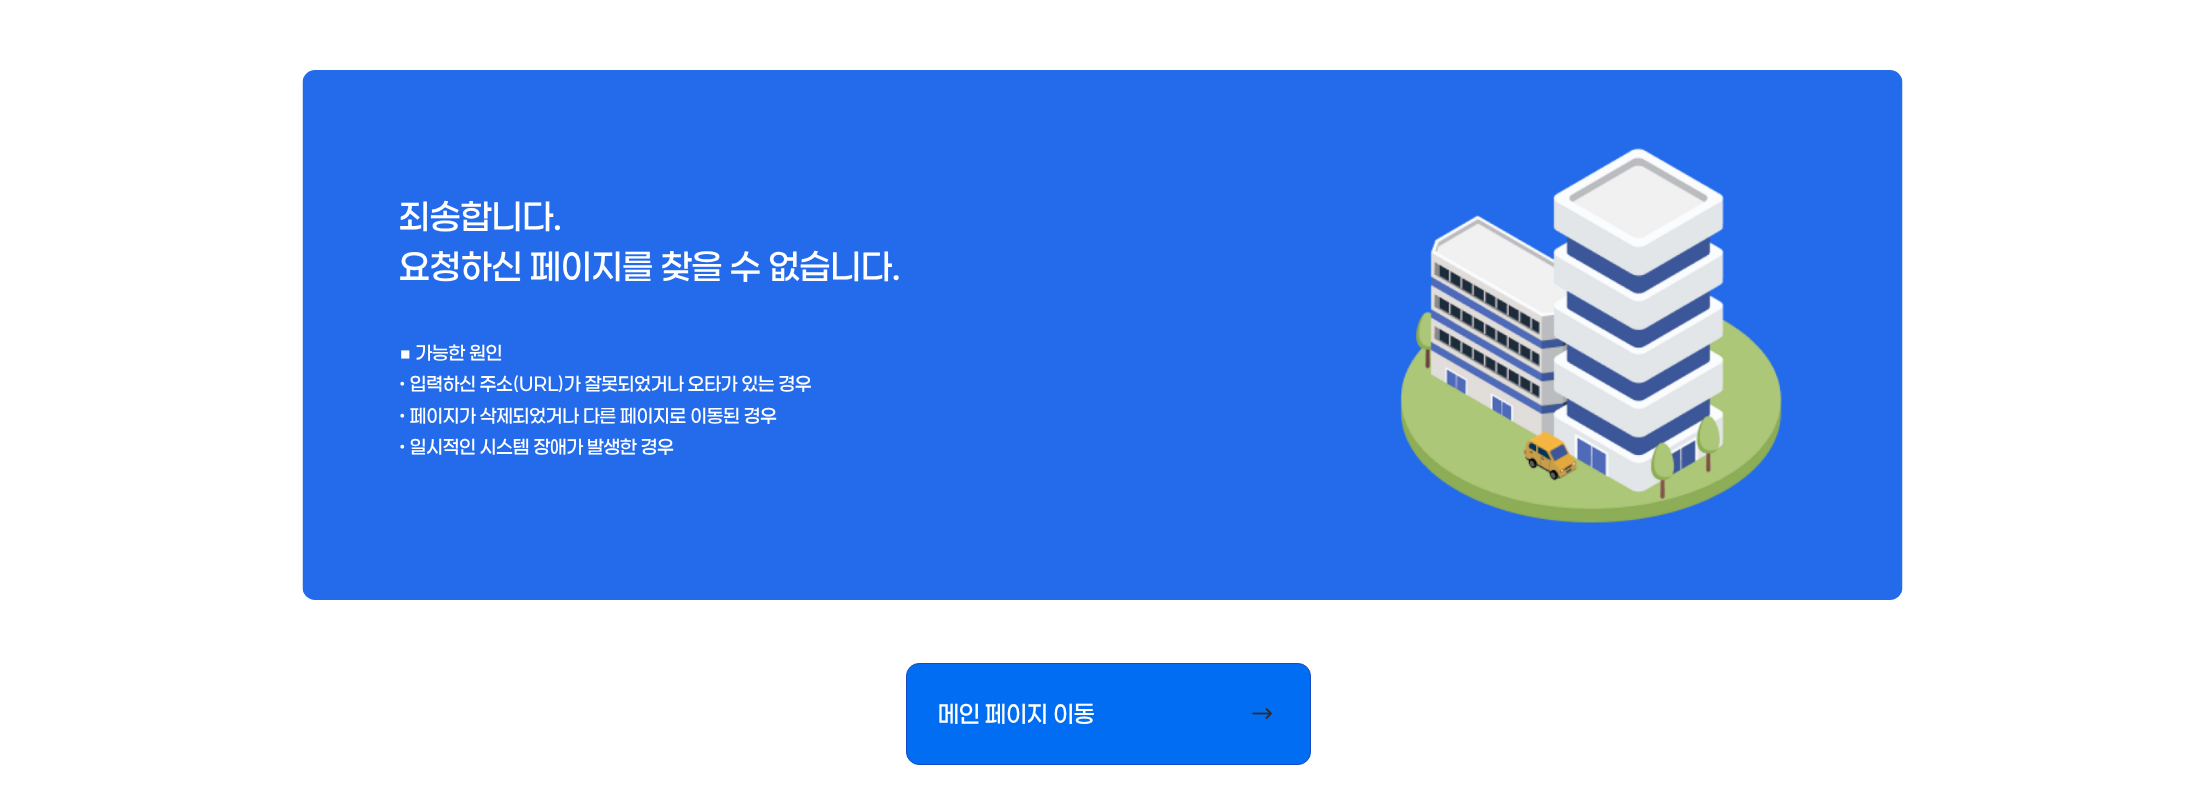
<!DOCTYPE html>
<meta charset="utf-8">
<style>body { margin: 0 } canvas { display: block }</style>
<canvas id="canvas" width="2205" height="798"></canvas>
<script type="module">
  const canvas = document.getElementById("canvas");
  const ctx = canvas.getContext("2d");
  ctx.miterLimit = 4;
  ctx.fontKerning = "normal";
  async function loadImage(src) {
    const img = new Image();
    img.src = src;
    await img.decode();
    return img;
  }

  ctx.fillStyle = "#ffffff";
  ctx.fillRect(0, 0, 2205, 798);
  ctx.drawImage(await loadImage("img1.png"), 302, 70, 1601, 530);
  ctx.font = "500 35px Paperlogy";
  ctx.fillText("죄송합니다.", 399, 230);
  ctx.fillText("요청하신 페이지를 찾을 수 없습니다.", 399, 280);
  ctx.font = "500 18.75px Paperlogy";
  ctx.fillText("■ 가능한 원인", 399, 360);
  ctx.fillText("• 입력하신 주소(URL)가 잘못되었거나 오타가 있는 경우", 399, 391);
  ctx.fillText("• 페이지가 삭제되었거나 다른 페이지로 이동된 경우", 399, 423);
  ctx.fillText("• 일시적인 시스템 장애가 발생한 경우", 399, 454);
  ctx.fillStyle = "#016df3";
  ctx.beginPath();
  ctx.roundRect(906.5, 663.5, 404, 101, 12.5);
  ctx.fill();
  ctx.strokeStyle = "#164abf";
  ctx.stroke();
  ctx.font = "500 23.75px Paperlogy";
  ctx.fillStyle = "#ffffff";
  ctx.fillText("메인 페이지 이동", 938, 723);
  ctx.beginPath();
  ctx.moveTo(1266.5, 718);
  ctx.lineTo(1271, 713.5);
  ctx.lineTo(1266.5, 709);
  ctx.strokeStyle = "#2d2d2d";
  ctx.lineWidth = 1.8;
  ctx.lineCap = "round";
  ctx.stroke();
  ctx.beginPath();
  ctx.moveTo(1271, 713.5);
  ctx.lineTo(1252.5, 713.5);
  ctx.lineCap = "butt";
  ctx.stroke();
</script>
